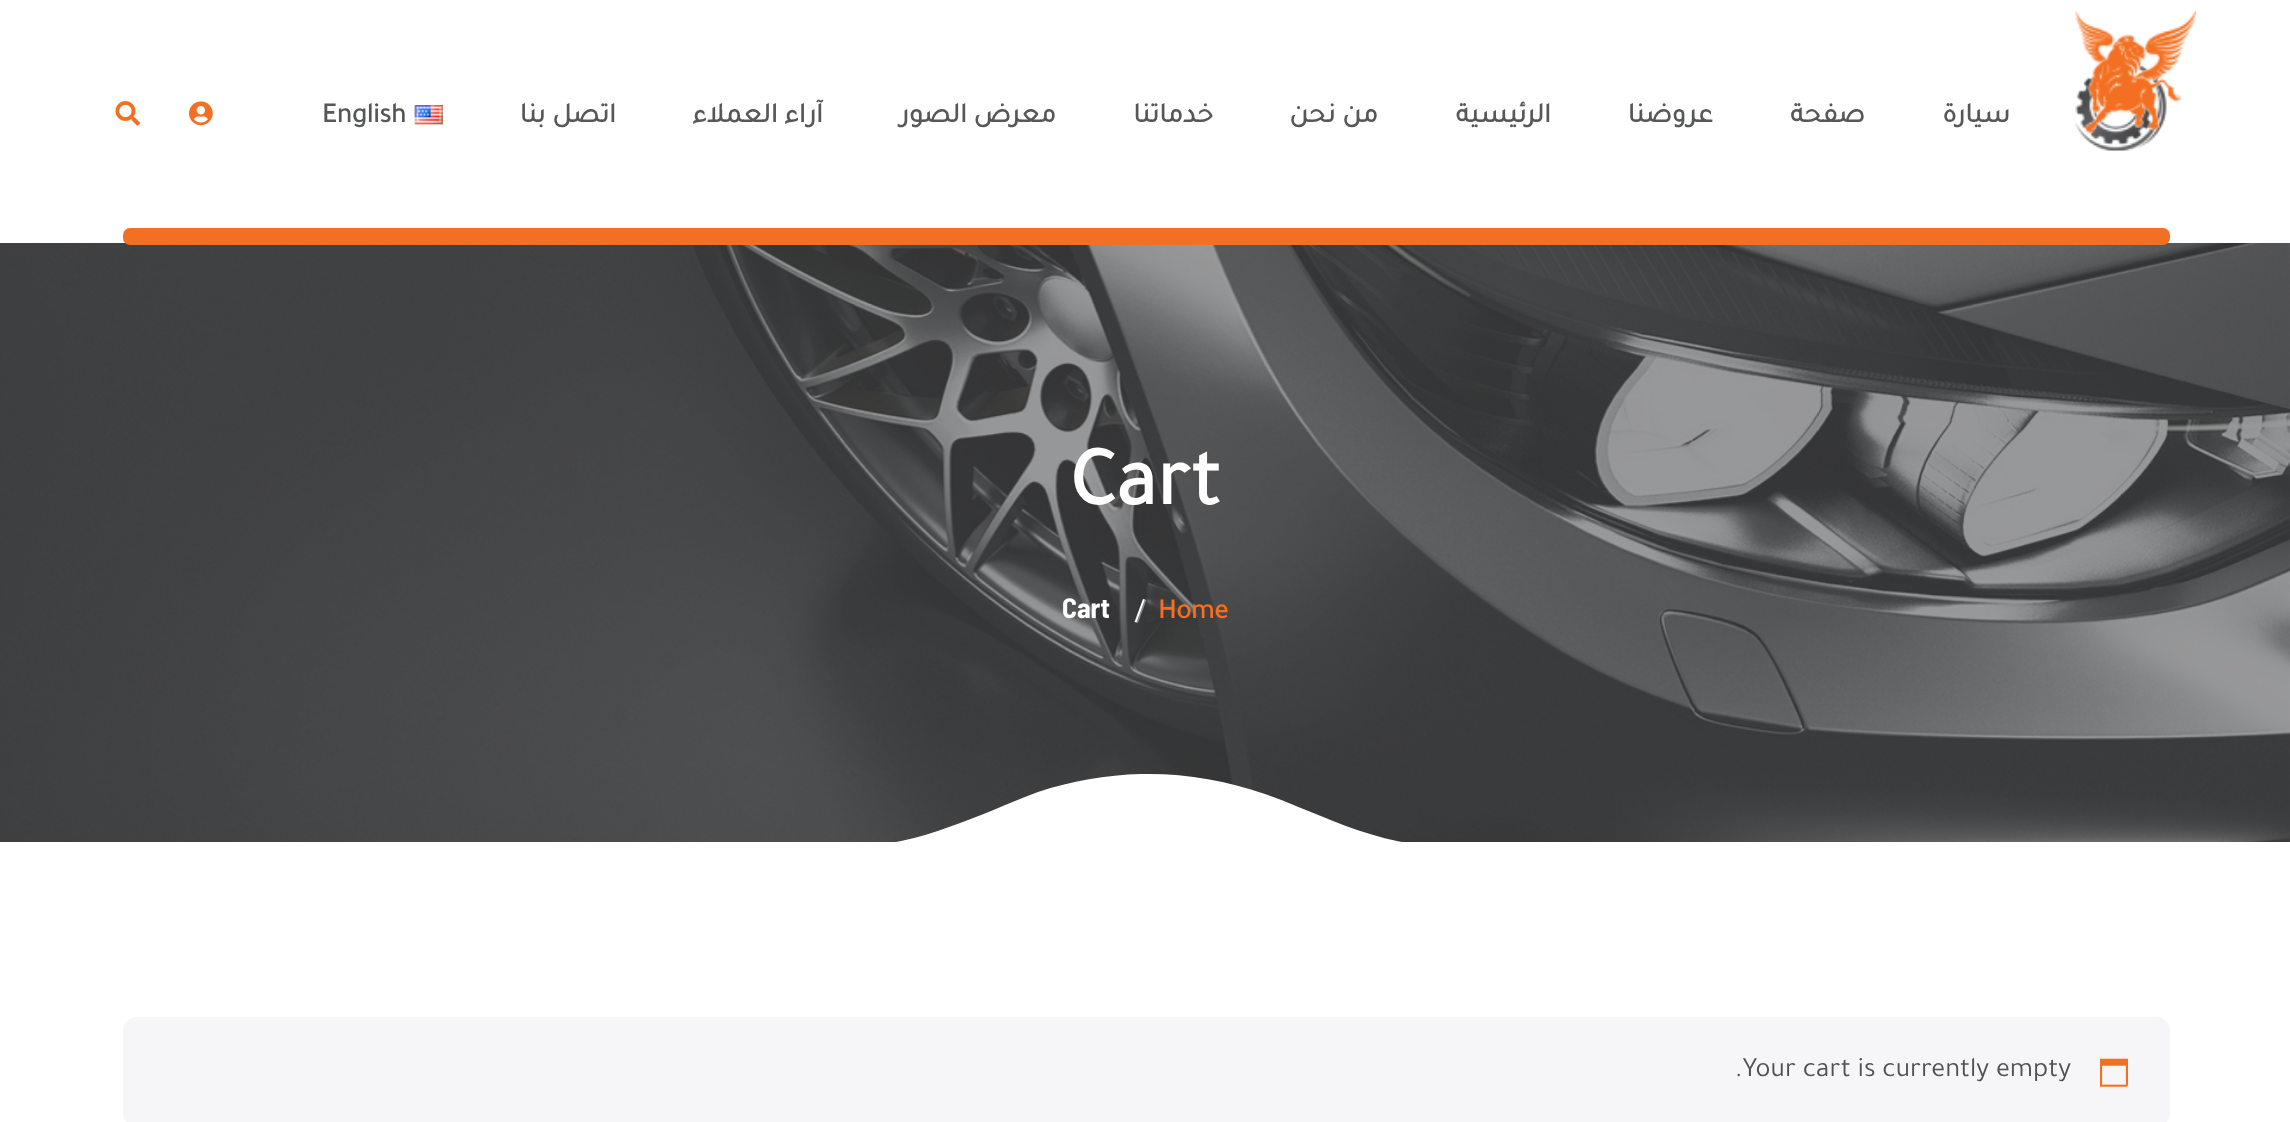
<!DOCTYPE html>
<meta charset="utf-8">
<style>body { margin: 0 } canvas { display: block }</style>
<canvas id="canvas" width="2290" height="1122"></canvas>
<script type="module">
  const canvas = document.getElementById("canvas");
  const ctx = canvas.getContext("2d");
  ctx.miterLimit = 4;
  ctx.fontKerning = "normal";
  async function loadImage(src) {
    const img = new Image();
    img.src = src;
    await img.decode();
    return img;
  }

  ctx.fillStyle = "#ffffff";
  ctx.fillRect(0, 0, 2290, 1122);
  ctx.drawImage(await loadImage("img1.png"), 2075, 10, 122, 141);
  ctx.direction = "rtl";
  ctx.font = "bold 28px Tajawal";
  ctx.fillStyle = "#565759";
  ctx.fillText("سيارة", 2010, 122);
  ctx.fillText("صفحة", 1865, 122);
  ctx.fillText("عروضنا", 1713, 122);
  ctx.fillText("الرئيسية", 1551, 122);
  ctx.fillText("من نحن", 1378, 122);
  ctx.fillText("خدماتنا", 1213, 122);
  ctx.fillText("معرض الصور", 1056, 122);
  ctx.fillText("آراء العملاء", 823, 122);
  ctx.fillText("اتصل بنا", 616, 122);
  ctx.drawImage(await loadImage("img2.png"), 414, 105, 29, 20);
  ctx.direction = "ltr";
  ctx.fillText("English", 322, 122);
  ctx.drawImage(await loadImage("img3.png"), 189, 101, 24, 25);
  ctx.drawImage(await loadImage("img4.png"), 115, 101, 25, 25);
  ctx.drawImage(await loadImage("img5.png"), 0, 243, 2290, 599);
  ctx.fillStyle = "#f36f21";
  ctx.beginPath();
  ctx.roundRect(123, 228, 2047, 17, 7);
  ctx.fill();
  ctx.font = "bold 84px Tajawal";
  ctx.fillStyle = "#ffffff";
  ctx.fillText("Cart", 1070, 504);
  ctx.font = "bold 28px Tajawal";
  ctx.fillStyle = "#f36f21";
  ctx.fillText("Home", 1158, 618);
  ctx.fillStyle = "rgba(255, 255, 255, 0.4)";
  ctx.beginPath();
  ctx.moveTo(1145, 599.5);
  ctx.lineTo(1146.5, 600);
  ctx.lineTo(1138, 623);
  ctx.lineTo(1136.5, 622.5);
  ctx.closePath();
  ctx.fill();
  ctx.fillStyle = "#ffffff";
  ctx.beginPath();
  ctx.moveTo(1143, 599);
  ctx.lineTo(1145, 599.5);
  ctx.lineTo(1136.5, 622.5);
  ctx.lineTo(1134.5, 622);
  ctx.closePath();
  ctx.fill();
  ctx.font = "bold 28px Barlow Semi Condensed";
  ctx.fillText("Cart", 1062, 618);
  ctx.beginPath();
  ctx.moveTo(1438, 847);
  ctx.bezierCurveTo(1402, 844, 1367, 835, 1333, 821);
  ctx.bezierCurveTo(1310, 812, 1288, 802, 1265, 794);
  ctx.bezierCurveTo(1225, 780, 1184, 773, 1141, 774);
  ctx.bezierCurveTo(1106, 775, 1071, 781, 1038, 792);
  ctx.bezierCurveTo(1008, 803, 979, 817, 949, 827);
  ctx.bezierCurveTo(919, 838, 886, 846, 854, 847);
  ctx.closePath();
  ctx.fill();
  ctx.fillStyle = "#f6f5f8";
  ctx.beginPath();
  ctx.roundRect(123, 1017, 2047, 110, 14);
  ctx.fill();
  ctx.drawImage(await loadImage("img6.png"), 2100, 1058, 28, 29);
  ctx.font = "28px Tajawal";
  ctx.fillStyle = "#515151";
  ctx.fillText(".Your cart is currently empty", 1735, 1076);
</script>
